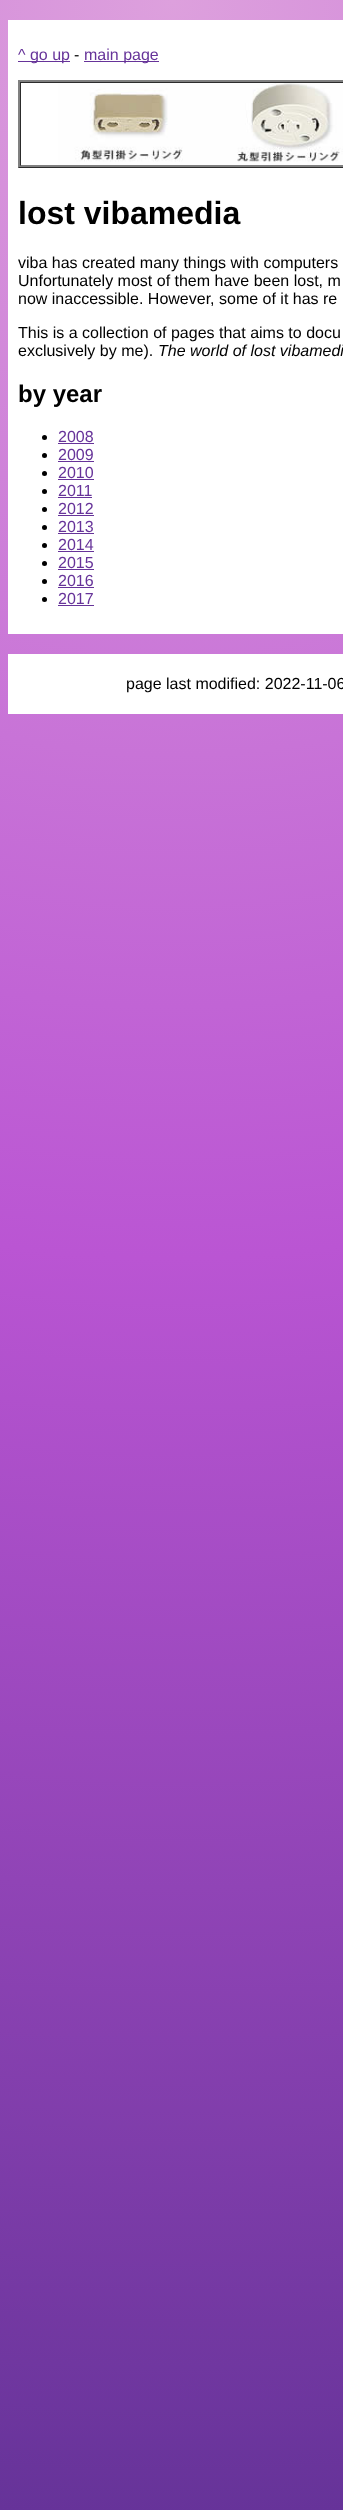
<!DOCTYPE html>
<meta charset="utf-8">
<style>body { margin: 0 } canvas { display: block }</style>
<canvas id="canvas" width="343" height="2510"></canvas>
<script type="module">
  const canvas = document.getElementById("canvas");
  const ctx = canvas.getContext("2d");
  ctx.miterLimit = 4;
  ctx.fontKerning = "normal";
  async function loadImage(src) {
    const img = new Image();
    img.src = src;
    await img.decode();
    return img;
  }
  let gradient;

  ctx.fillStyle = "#ffffff";
  ctx.fillRect(0, 0, 343, 2510);
  gradient = ctx.createRadialGradient(172, 0, 0, 172, 0, 2516);
  gradient.addColorStop(0, "#dda0dd");
  gradient.addColorStop(0.5, "#ba55d3");
  gradient.addColorStop(1, "#663399");
  ctx.fillStyle = gradient;
  ctx.fillRect(0, 0, 343, 2510);
  ctx.fillStyle = "#ffffff";
  ctx.fillRect(8, 20, 335, 614);
  ctx.fillStyle = "#663399";
  ctx.fillRect(18, 61, 52, 1);
  ctx.font = "16px Liberation Sans";
  ctx.fillText("^ go up", 18, 60);
  ctx.fillStyle = "#000000";
  ctx.fillText("-", 74, 60);
  ctx.fillStyle = "#663399";
  ctx.fillRect(84, 61, 75, 1);
  ctx.fillText("main page", 84, 60);
  ctx.drawImage(await loadImage("img1.png"), 18, 80, 325, 88);
  ctx.font = "bold 32px Liberation Sans";
  ctx.fillStyle = "#000000";
  ctx.fillText("lost vibamedia", 18, 224);
  ctx.font = "16px Liberation Sans";
  ctx.fillText("viba has created many things with computers", 18, 268);
  ctx.fillText("Unfortunately most of them have been lost, m", 18, 286);
  ctx.fillText("now inaccessible. However, some of it has re", 18, 304);
  ctx.fillText("This is a collection of pages that aims to docu", 18, 338);
  ctx.fillText("exclusively by me).", 18, 356);
  ctx.font = "italic 16px Liberation Sans";
  ctx.fillText("The world of lost vibamedi", 158, 356);
  ctx.font = "bold 24px Liberation Sans";
  ctx.fillText("by year", 18, 402);
  ctx.beginPath();
  ctx.arc(44.5, 437.5, 2.5, 0, Math.PI * 2);
  ctx.fill();
  ctx.font = "16px Liberation Sans";
  ctx.fillStyle = "#663399";
  ctx.fillText("2008", 58, 442);
  ctx.fillRect(58, 443, 36, 1);
  ctx.fillStyle = "#000000";
  ctx.beginPath();
  ctx.arc(44.5, 455.5, 2.5, 0, Math.PI * 2);
  ctx.fill();
  ctx.fillStyle = "#663399";
  ctx.fillText("2009", 58, 460);
  ctx.fillRect(58, 461, 36, 1);
  ctx.fillStyle = "#000000";
  ctx.beginPath();
  ctx.arc(44.5, 473.5, 2.5, 0, Math.PI * 2);
  ctx.fill();
  ctx.fillStyle = "#663399";
  ctx.fillText("2010", 58, 478);
  ctx.fillRect(58, 479, 36, 1);
  ctx.fillStyle = "#000000";
  ctx.beginPath();
  ctx.arc(44.5, 491.5, 2.5, 0, Math.PI * 2);
  ctx.fill();
  ctx.fillStyle = "#663399";
  ctx.fillText("2011", 58, 496);
  ctx.fillRect(58, 497, 34, 1);
  ctx.fillStyle = "#000000";
  ctx.beginPath();
  ctx.arc(44.5, 509.5, 2.5, 0, Math.PI * 2);
  ctx.fill();
  ctx.fillStyle = "#663399";
  ctx.fillText("2012", 58, 514);
  ctx.fillRect(58, 515, 36, 1);
  ctx.fillStyle = "#000000";
  ctx.beginPath();
  ctx.arc(44.5, 527.5, 2.5, 0, Math.PI * 2);
  ctx.fill();
  ctx.fillStyle = "#663399";
  ctx.fillText("2013", 58, 532);
  ctx.fillRect(58, 533, 36, 1);
  ctx.fillStyle = "#000000";
  ctx.beginPath();
  ctx.arc(44.5, 545.5, 2.5, 0, Math.PI * 2);
  ctx.fill();
  ctx.fillStyle = "#663399";
  ctx.fillText("2014", 58, 550);
  ctx.fillRect(58, 551, 36, 1);
  ctx.fillStyle = "#000000";
  ctx.beginPath();
  ctx.arc(44.5, 563.5, 2.5, 0, Math.PI * 2);
  ctx.fill();
  ctx.fillStyle = "#663399";
  ctx.fillText("2015", 58, 568);
  ctx.fillRect(58, 569, 36, 1);
  ctx.fillStyle = "#000000";
  ctx.beginPath();
  ctx.arc(44.5, 581.5, 2.5, 0, Math.PI * 2);
  ctx.fill();
  ctx.fillStyle = "#663399";
  ctx.fillText("2016", 58, 586);
  ctx.fillRect(58, 587, 36, 1);
  ctx.fillStyle = "#000000";
  ctx.beginPath();
  ctx.arc(44.5, 599.5, 2.5, 0, Math.PI * 2);
  ctx.fill();
  ctx.fillStyle = "#663399";
  ctx.fillText("2017", 58, 604);
  ctx.fillRect(58, 605, 36, 1);
  ctx.fillStyle = "#ffffff";
  ctx.fillRect(8, 654, 335, 60);
  ctx.fillStyle = "#000000";
  ctx.fillText("page last modified: 2022-11-06", 126, 689);
</script>
